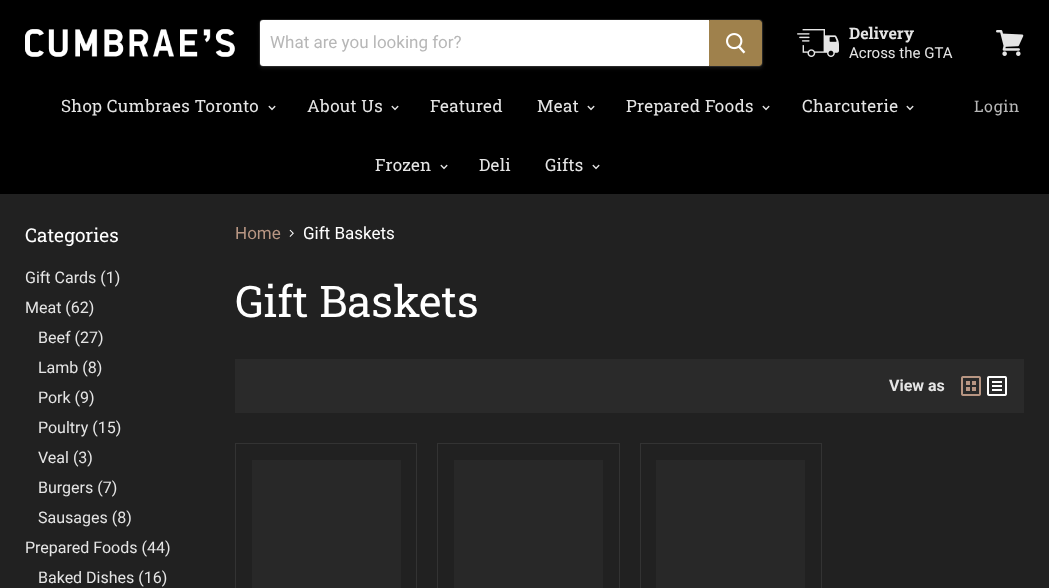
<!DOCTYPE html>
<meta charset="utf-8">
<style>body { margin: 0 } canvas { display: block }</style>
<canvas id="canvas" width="1049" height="588"></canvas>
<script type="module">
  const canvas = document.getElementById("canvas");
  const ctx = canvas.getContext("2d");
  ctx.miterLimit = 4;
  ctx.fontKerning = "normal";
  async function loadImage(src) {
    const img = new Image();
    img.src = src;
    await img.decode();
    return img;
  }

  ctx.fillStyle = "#212121";
  ctx.fillRect(0, 0, 1049, 588);
  ctx.fillStyle = "#000000";
  ctx.fillRect(0, 0, 1049, 194);
  ctx.drawImage(await loadImage("img1.png"), 25, 29, 210, 28);
  ctx.fillStyle = "rgba(144, 144, 144, 0.11)";
  ctx.filter = "blur(1.5px)";
  ctx.beginPath();
  ctx.roundRect(259, 21, 504, 48, 4);
  ctx.fill();
  ctx.filter = "none";
  ctx.beginPath();
  ctx.roundRect(259.5, 19.5, 503, 47, 3.5);
  ctx.strokeStyle = "rgba(144, 144, 144, 0.2)";
  ctx.stroke();
  ctx.fillStyle = "#ffffff";
  ctx.beginPath();
  ctx.roundRect(260, 20, 449, 46, [3, 0, 0, 3]);
  ctx.fill();
  ctx.font = "17px Roboto";
  ctx.fillStyle = "#b7b7b7";
  ctx.fillText("What are you looking for?", 270, 48);
  ctx.fillStyle = "#9f814c";
  ctx.beginPath();
  ctx.roundRect(709.5, 20.5, 52, 45, [0, 2.5, 2.5, 0]);
  ctx.fill();
  ctx.strokeStyle = "#9f814c";
  ctx.stroke();
  ctx.drawImage(await loadImage("img2.png"), 726, 33, 20, 21);
  ctx.drawImage(await loadImage("img3.png"), 797, 29, 42, 28);
  ctx.font = "bold 16px Roboto Slab";
  ctx.fillStyle = "#e5e5e5";
  ctx.fillText("Delivery", 849, 39);
  ctx.font = "15px Roboto";
  ctx.fillText("Across the GTA", 849, 58);
  ctx.drawImage(await loadImage("img4.png"), 996, 30, 28, 26);
  ctx.letterSpacing = "0.3px";
  ctx.font = "17px Roboto Slab";
  ctx.fillText("Shop Cumbraes Toronto", 61, 112);
  ctx.drawImage(await loadImage("img5.png"), 268, 105, 8, 6);
  ctx.fillText("About Us", 307, 112);
  ctx.drawImage(await loadImage("img5.png"), 391, 105, 8, 6);
  ctx.fillText("Featured", 430, 112);
  ctx.fillText("Meat", 537, 112);
  ctx.drawImage(await loadImage("img5.png"), 587, 105, 8, 6);
  ctx.fillText("Prepared Foods", 626, 112);
  ctx.drawImage(await loadImage("img5.png"), 762, 105, 8, 6);
  ctx.fillText("Charcuterie", 802, 112);
  ctx.drawImage(await loadImage("img5.png"), 906, 105, 8, 6);
  ctx.fillText("Frozen", 375, 171);
  ctx.drawImage(await loadImage("img5.png"), 440, 164, 8, 6);
  ctx.fillText("Deli", 479, 171);
  ctx.fillText("Gifts", 545, 171);
  ctx.drawImage(await loadImage("img5.png"), 592, 164, 8, 6);
  ctx.letterSpacing = "0.5px";
  ctx.font = "16px Roboto Slab";
  ctx.fillStyle = "#b7b7b7";
  ctx.fillText("Login", 974, 112);
  ctx.letterSpacing = "0px";
  ctx.font = "19px Roboto Slab";
  ctx.fillStyle = "#ffffff";
  ctx.fillText("Categories", 25, 242);
  ctx.font = "16px Roboto";
  ctx.fillStyle = "#e5e5e5";
  ctx.fillText("Gift Cards (1)", 25, 283);
  ctx.fillText("Meat (62)", 25, 313);
  ctx.fillText("Beef (27)", 38, 343);
  ctx.fillText("Lamb (8)", 38, 373);
  ctx.fillText("Pork (9)", 38, 403);
  ctx.fillText("Poultry (15)", 38, 433);
  ctx.fillText("Veal (3)", 38, 463);
  ctx.fillText("Burgers (7)", 38, 493);
  ctx.fillText("Sausages (8)", 38, 523);
  ctx.fillText("Prepared Foods (44)", 25, 553);
  ctx.fillText("Baked Dishes (16)", 38, 583);
  ctx.font = "17px Roboto";
  ctx.fillStyle = "#b89683";
  ctx.fillText("Home", 235, 239);
  ctx.drawImage(await loadImage("img6.png"), 289, 229, 5, 8);
  ctx.fillStyle = "#ffffff";
  ctx.fillText("Gift Baskets", 303, 239);
  ctx.font = "43.5px Roboto Slab";
  ctx.fillText("Gift Baskets", 235, 317);
  ctx.fillStyle = "#2a2a2a";
  ctx.fillRect(235, 359, 789, 54);
  ctx.font = "bold 16px Roboto";
  ctx.fillStyle = "#e5e5e5";
  ctx.fillText("View as", 889, 391);
  ctx.drawImage(await loadImage("img7.png"), 961, 376, 20, 20);
  ctx.drawImage(await loadImage("img8.png"), 987, 376, 20, 20);
  ctx.strokeStyle = "#333333";
  ctx.strokeRect(235.5, 443.5, 181, 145);
  ctx.fillStyle = "#282828";
  ctx.fillRect(252, 460, 149, 128);
  ctx.strokeRect(437.5, 443.5, 182, 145);
  ctx.fillRect(454, 460, 149, 128);
  ctx.strokeRect(640.5, 443.5, 181, 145);
  ctx.fillRect(656, 460, 149, 128);
</script>
